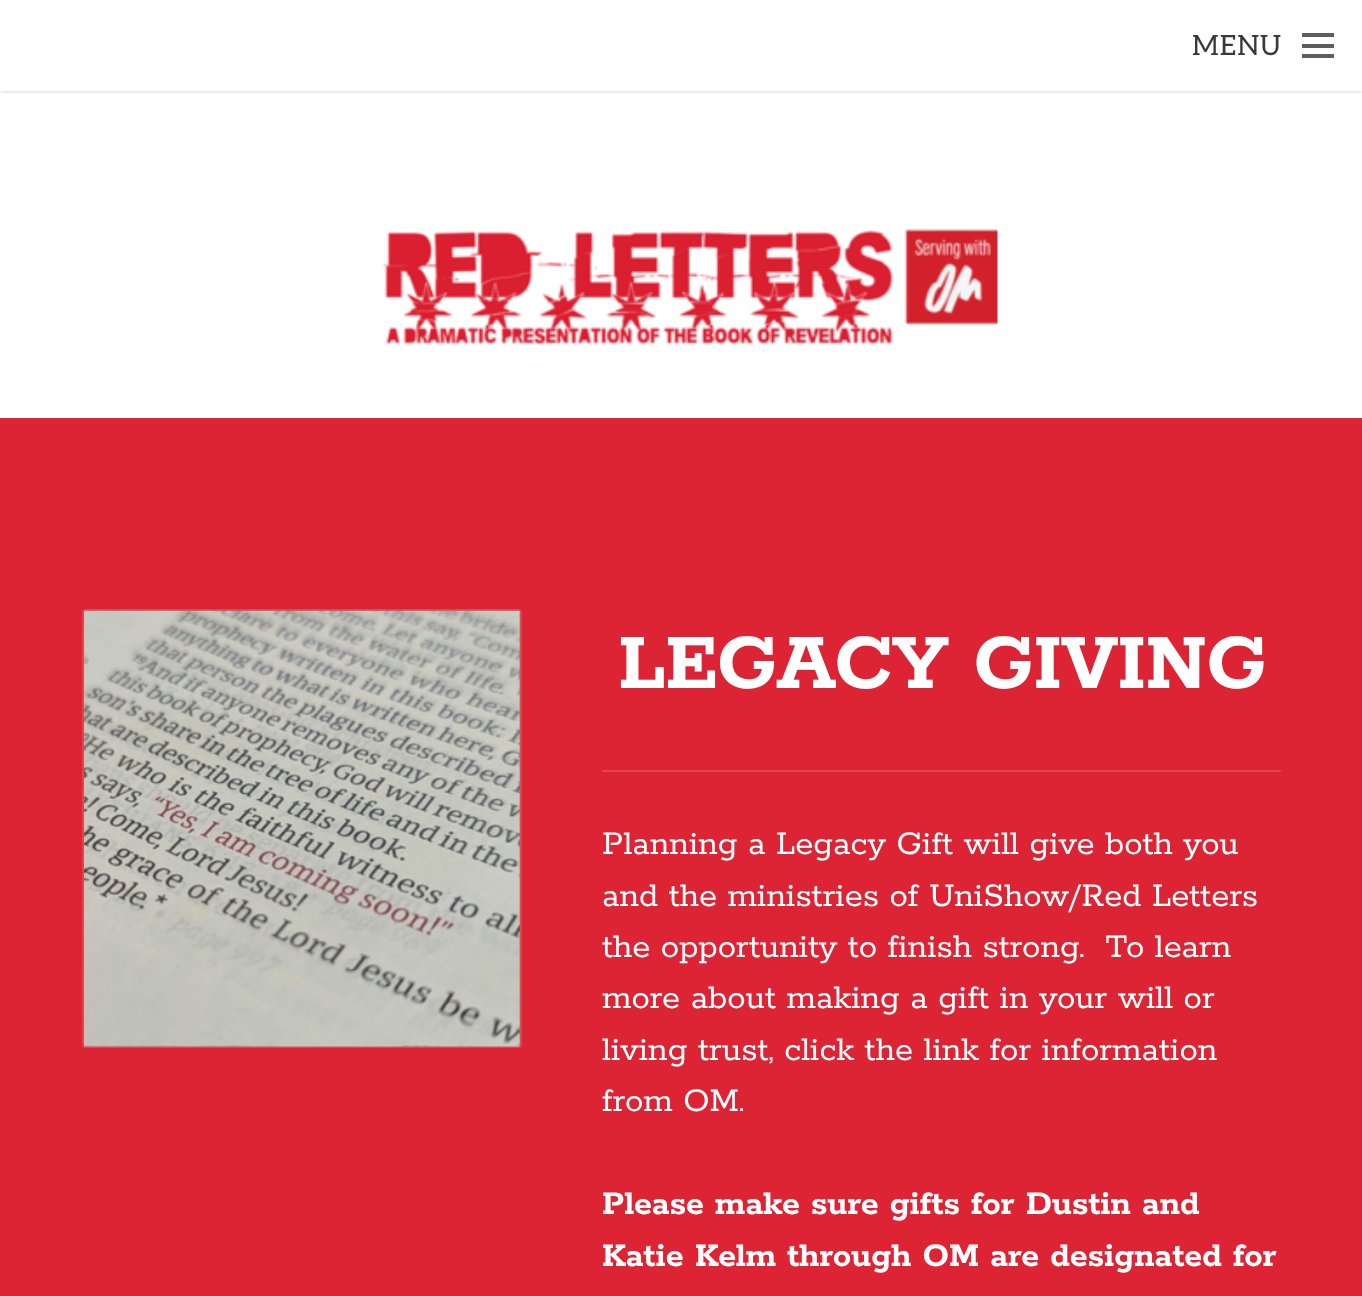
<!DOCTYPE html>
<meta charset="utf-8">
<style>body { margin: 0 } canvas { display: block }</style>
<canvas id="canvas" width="1362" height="1296"></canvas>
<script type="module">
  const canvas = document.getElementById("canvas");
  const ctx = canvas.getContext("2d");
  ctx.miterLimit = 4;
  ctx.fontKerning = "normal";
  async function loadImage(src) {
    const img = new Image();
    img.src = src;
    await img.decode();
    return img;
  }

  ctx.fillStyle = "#ffffff";
  ctx.fillRect(0, 0, 1362, 1296);
  ctx.save();
  ctx.beginPath();
  ctx.rect(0, 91, 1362, 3);
  ctx.clip();
  ctx.fillStyle = "rgba(0, 0, 0, 0.2)";
  ctx.filter = "blur(2.5px)";
  ctx.beginPath();
  ctx.rect(0, 0, 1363, 91);
  ctx.fill();
  ctx.filter = "none";
  ctx.restore();
  ctx.letterSpacing = "1px";
  ctx.font = "28px Aleo";
  ctx.fillStyle = "#393939";
  ctx.fillText("MENU", 1192, 55);
  ctx.fillStyle = "#5d5d5d";
  ctx.fillRect(1302, 33, 32, 4);
  ctx.fillRect(1302, 44, 32, 4);
  ctx.fillRect(1302, 54, 32, 4);
  ctx.drawImage(await loadImage("img1.png"), 383, 228, 615, 118);
  ctx.fillStyle = "#dc2434";
  ctx.fillRect(0, 418, 1362, 878);
  ctx.beginPath();
  ctx.roundRect(83, 610, 438, 437, 3);
  ctx.strokeStyle = "#df4552";
  ctx.lineWidth = 2;
  ctx.stroke();
  ctx.drawImage(await loadImage("img2.png"), 84, 610, 436, 437);
  ctx.fillStyle = "#df4552";
  ctx.fillRect(602, 770, 679, 2);
  ctx.letterSpacing = "-0.9px";
  ctx.font = "bold 87.5px Rokkitt";
  ctx.fillStyle = "#ffffff";
  ctx.fillText("LEGACY GIVING", 618, 688);
  ctx.letterSpacing = "0px";
  ctx.font = "36.75px Rokkitt";
  ctx.fillText("Planning a Legacy Gift will give both you", 602, 854);
  ctx.fillText("and the ministries of UniShow/Red Letters", 602, 906);
  ctx.fillText("the opportunity to finish strong.  To learn", 602, 957);
  ctx.fillText("more about making a gift in your will or", 602, 1008);
  ctx.fillText("living trust, click the link for information", 602, 1060);
  ctx.fillText("from OM.", 602, 1111);
  ctx.font = "bold 36.75px Rokkitt";
  ctx.fillText("Please make sure gifts for Dustin and", 602, 1214);
  ctx.fillText("Katie Kelm through OM are designated for", 602, 1266);
</script>
